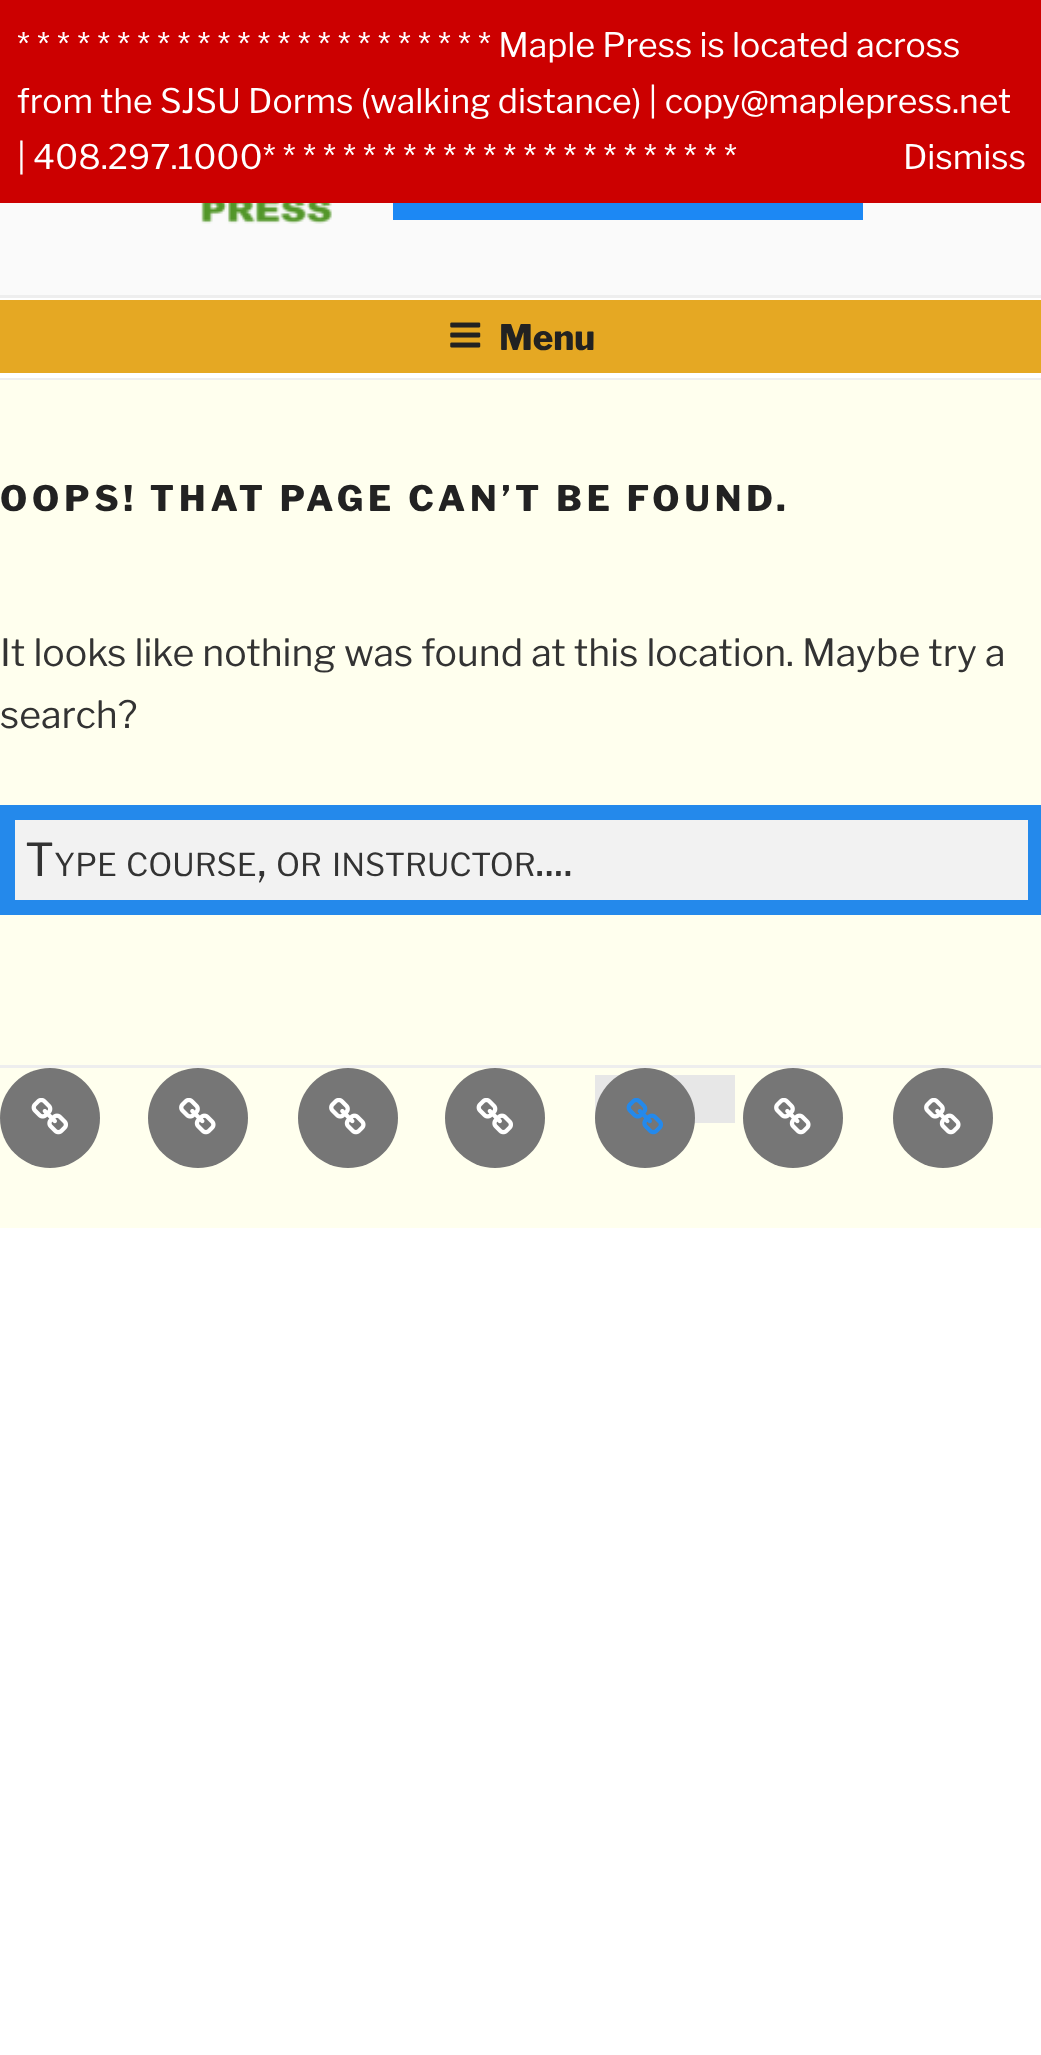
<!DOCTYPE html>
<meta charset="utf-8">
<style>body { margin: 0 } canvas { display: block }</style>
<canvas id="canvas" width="1041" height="2055"></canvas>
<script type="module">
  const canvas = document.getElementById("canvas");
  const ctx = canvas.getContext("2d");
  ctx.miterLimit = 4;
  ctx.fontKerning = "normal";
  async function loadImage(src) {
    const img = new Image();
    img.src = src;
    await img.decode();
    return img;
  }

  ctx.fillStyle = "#ffffff";
  ctx.fillRect(0, 0, 1041, 2055);
  ctx.fillStyle = "#cc0000";
  ctx.fillRect(0, 0, 1041, 203);
  ctx.font = "100 33.75px 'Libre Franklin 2'";
  ctx.fillStyle = "#ffffff";
  ctx.fillText("* * * * * * * * * * * * * * * * * * * * * * * * Maple Press is located across", 17, 57);
  ctx.fillText("from the SJSU Dorms (walking distance) | copy@maplepress.net", 17, 113);
  ctx.fillText("| 408.297.1000* * * * * * * * * * * * * * * * * * * * * * * *", 17, 169);
  ctx.fillText("Dismiss", 903, 169);
  ctx.fillStyle = "#fafafa";
  ctx.fillRect(0, 203, 1041, 92);
  ctx.drawImage(await loadImage("img1.png"), 201, 203, 131, 21);
  ctx.fillStyle = "#1c88f4";
  ctx.fillRect(393, 203, 470, 17);
  ctx.fillStyle = "#eeeeee";
  ctx.fillRect(0, 295, 1041, 3);
  ctx.fillRect(0, 378, 1041, 2);
  ctx.fillStyle = "#e5a823";
  ctx.fillRect(0, 300, 1041, 73);
  ctx.drawImage(await loadImage("img2.png"), 450, 322, 31, 26);
  ctx.font = "100 35px Libre Franklin";
  ctx.fillStyle = "#222222";
  ctx.fillText("Menu", 499, 350);
  ctx.fillStyle = "#ffffee";
  ctx.fillRect(0, 380, 1041, 848);
  ctx.letterSpacing = "4.9px";
  ctx.fillStyle = "#222222";
  ctx.fillText("OOPS! THAT PAGE CAN’T BE FOUND.", 0, 511);
  ctx.letterSpacing = "0px";
  ctx.font = "100 37.5px 'Libre Franklin 2'";
  ctx.fillStyle = "#333333";
  ctx.fillText("It looks like nothing was found at this location. Maybe try a", 0, 666);
  ctx.fillText("search?", 0, 728);
  ctx.fillStyle = "#f2f2f2";
  ctx.beginPath();
  ctx.rect(7.5, 812.5, 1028, 95);
  ctx.fill();
  ctx.strokeStyle = "#2489eb";
  ctx.lineWidth = 15;
  ctx.stroke();
  ctx.font = "100 45px 'Libre Franklin 2'";
  ctx.fillStyle = "#333333";
  ctx.fillText("T", 25, 876);
  ctx.font = "100 31.5px 'Libre Franklin 2'";
  ctx.fillText("YPE", 54, 876);
  ctx.fillText("COURSE", 126, 876);
  ctx.font = "100 45px 'Libre Franklin 2'";
  ctx.fillText(",", 257, 876);
  ctx.font = "100 31.5px 'Libre Franklin 2'";
  ctx.fillText("OR", 276, 876);
  ctx.fillText("INSTRUCTOR", 332, 876);
  ctx.font = "100 45px 'Libre Franklin 2'";
  ctx.fillText("....", 535, 876);
  ctx.fillStyle = "#eeeeee";
  ctx.fillRect(0, 1065, 1041, 3);
  ctx.fillStyle = "#767676";
  ctx.beginPath();
  ctx.arc(50, 1118, 50, 0, Math.PI * 2);
  ctx.fill();
  ctx.drawImage(await loadImage("img3.png"), 31, 1098, 37, 37);
  ctx.beginPath();
  ctx.arc(198, 1118, 50, 0, Math.PI * 2);
  ctx.fill();
  ctx.drawImage(await loadImage("img4.png"), 179, 1098, 37, 37);
  ctx.beginPath();
  ctx.arc(348, 1118, 50, 0, Math.PI * 2);
  ctx.fill();
  ctx.drawImage(await loadImage("img4.png"), 329, 1098, 37, 37);
  ctx.beginPath();
  ctx.arc(495, 1118, 50, 0, Math.PI * 2);
  ctx.fill();
  ctx.drawImage(await loadImage("img3.png"), 476, 1098, 37, 37);
  ctx.fillStyle = "#e7e7e7";
  ctx.fillRect(595, 1075, 140, 48);
  ctx.fillStyle = "#767676";
  ctx.beginPath();
  ctx.arc(645, 1118, 50, 0, Math.PI * 2);
  ctx.fill();
  ctx.drawImage(await loadImage("img5.png"), 626, 1098, 37, 37);
  ctx.beginPath();
  ctx.arc(793, 1118, 50, 0, Math.PI * 2);
  ctx.fill();
  ctx.drawImage(await loadImage("img4.png"), 774, 1098, 37, 37);
  ctx.beginPath();
  ctx.arc(943, 1118, 50, 0, Math.PI * 2);
  ctx.fill();
  ctx.drawImage(await loadImage("img4.png"), 924, 1098, 37, 37);
</script>
